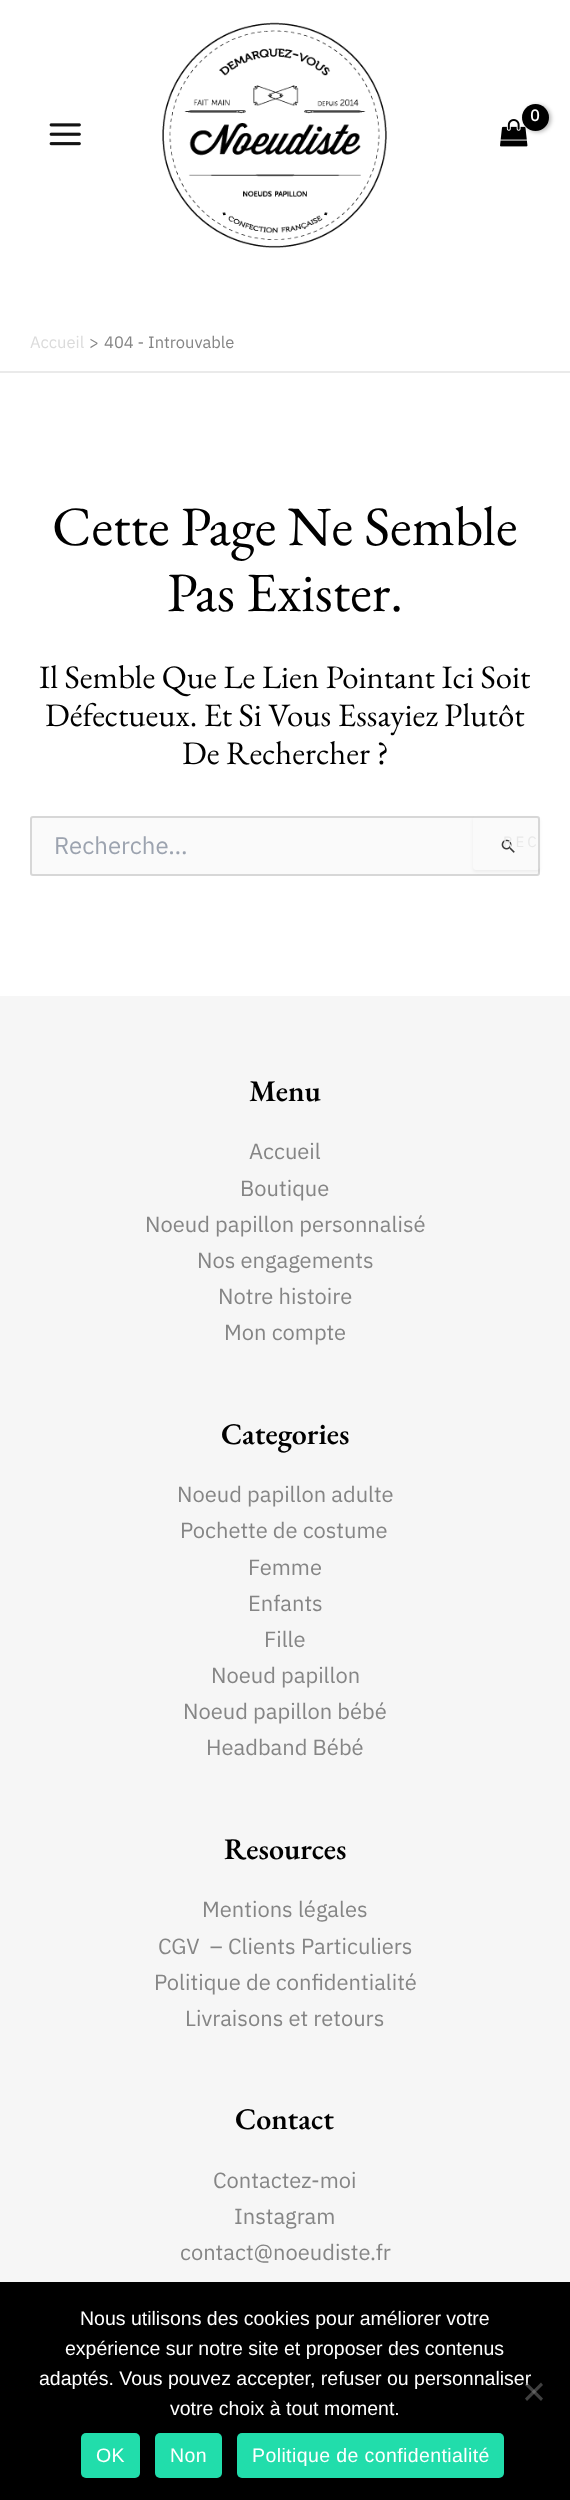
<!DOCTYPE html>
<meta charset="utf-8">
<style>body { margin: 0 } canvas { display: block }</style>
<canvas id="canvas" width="570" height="2500"></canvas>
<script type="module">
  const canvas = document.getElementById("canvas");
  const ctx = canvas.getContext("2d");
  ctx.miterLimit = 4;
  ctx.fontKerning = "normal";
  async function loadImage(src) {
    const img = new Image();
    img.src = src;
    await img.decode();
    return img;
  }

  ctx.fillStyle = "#ffffff";
  ctx.fillRect(0, 0, 570, 2500);
  ctx.drawImage(await loadImage("img1.png"), 162, 22, 225, 226);
  ctx.drawImage(await loadImage("img2.png"), 500, 119, 28, 28);
  ctx.fillStyle = "rgba(0, 0, 0, 0.3)";
  ctx.filter = "blur(2px)";
  ctx.beginPath();
  ctx.roundRect(524, 105, 27, 27, 13.5);
  ctx.fill();
  ctx.filter = "none";
  ctx.fillStyle = "#000000";
  ctx.beginPath();
  ctx.arc(535.5, 117.5, 13.5, 0, Math.PI * 2);
  ctx.fill();
  ctx.letterSpacing = "-1px";
  ctx.font = "bold 16px IBM Plex Sans";
  ctx.fillStyle = "#ffffff";
  ctx.fillText("0", 530, 121);
  ctx.drawImage(await loadImage("img3.png"), 49, 123, 32, 23);
  ctx.fillStyle = "#eaeaea";
  ctx.fillRect(0, 371, 570, 2);
  ctx.letterSpacing = "0px";
  ctx.font = "16.5px IBM Plex Sans";
  ctx.fillStyle = "#dbdbdb";
  ctx.fillText("Accueil", 30, 348);
  ctx.fillStyle = "#858585";
  ctx.fillText(">", 89, 348);
  ctx.fillText("404 - Introuvable", 104, 348);
  ctx.font = "55.5px EB Garamond";
  ctx.fillStyle = "#000000";
  ctx.fillText("Cette Page Ne Semble", 52, 545);
  ctx.fillText("Pas Exister.", 167, 611);
  ctx.font = "32.8px EB Garamond";
  ctx.fillText("Il Semble Que Le Lien Pointant Ici Soit", 39, 688);
  ctx.fillText("Défectueux. Et Si Vous Essayiez Plutôt", 45, 726);
  ctx.fillText("De Rechercher ?", 182, 764);
  ctx.fillStyle = "#fafafa";
  ctx.beginPath();
  ctx.roundRect(31, 817, 508, 58, 2);
  ctx.fill();
  ctx.strokeStyle = "#d7d7d7";
  ctx.lineWidth = 2;
  ctx.stroke();
  ctx.font = "24px IBM Plex Sans";
  ctx.fillStyle = "#9ca3af";
  ctx.fillText("Recherche…", 54, 854);
  ctx.drawImage(await loadImage("img4.png"), 501, 839, 14, 14);
  ctx.save();
  ctx.beginPath();
  ctx.moveTo(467, 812);
  ctx.lineTo(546, 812);
  ctx.lineTo(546, 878);
  ctx.lineTo(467, 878);
  ctx.closePath();
  ctx.moveTo(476, 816);
  ctx.lineTo(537, 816);
  ctx.bezierCurveTo(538.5, 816, 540, 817.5, 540, 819);
  ctx.lineTo(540, 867);
  ctx.bezierCurveTo(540, 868.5, 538.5, 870, 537, 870);
  ctx.lineTo(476, 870);
  ctx.bezierCurveTo(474.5, 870, 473, 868.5, 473, 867);
  ctx.lineTo(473, 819);
  ctx.bezierCurveTo(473, 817.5, 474.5, 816, 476, 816);
  ctx.closePath();
  ctx.clip("evenodd");
  ctx.fillStyle = "rgba(0, 0, 0, 0.05)";
  ctx.filter = "blur(1.5px)";
  ctx.beginPath();
  ctx.roundRect(473, 818, 67, 54, 3);
  ctx.fill();
  ctx.filter = "none";
  ctx.restore();
  ctx.letterSpacing = "3px";
  ctx.font = "15px IBM Plex Sans";
  ctx.fillStyle = "#e8e8e8";
  ctx.fillText("REC", 503, 847);
  ctx.fillStyle = "#f6f6f6";
  ctx.fillRect(0, 996, 570, 1286);
  ctx.letterSpacing = "0px";
  ctx.font = "600 30px EB Garamond";
  ctx.fillStyle = "#000000";
  ctx.fillText("Menu", 249, 1101);
  ctx.font = "21.9px IBM Plex Sans";
  ctx.fillStyle = "#858585";
  ctx.fillText("Accueil", 249, 1159);
  ctx.fillText("Boutique", 240, 1196);
  ctx.fillText("Noeud papillon personnalisé", 145, 1232);
  ctx.fillText("Nos engagements", 197, 1268);
  ctx.fillText("Notre histoire", 218, 1304);
  ctx.fillText("Mon compte", 224, 1340);
  ctx.font = "600 30px EB Garamond";
  ctx.fillStyle = "#000000";
  ctx.fillText("Categories", 221, 1444);
  ctx.font = "21.9px IBM Plex Sans";
  ctx.fillStyle = "#858585";
  ctx.fillText("Noeud papillon adulte", 177, 1502);
  ctx.fillText("Pochette de costume", 180, 1538);
  ctx.fillText("Femme", 248, 1575);
  ctx.fillText("Enfants", 248, 1611);
  ctx.fillText("Fille", 264, 1647);
  ctx.fillText("Noeud papillon", 211, 1683);
  ctx.fillText("Noeud papillon bébé", 183, 1719);
  ctx.fillText("Headband Bébé", 206, 1755);
  ctx.font = "600 30px EB Garamond";
  ctx.fillStyle = "#000000";
  ctx.fillText("Resources", 224, 1859);
  ctx.font = "21.9px IBM Plex Sans";
  ctx.fillStyle = "#858585";
  ctx.fillText("Mentions légales", 202, 1917);
  ctx.fillText("CGV  – Clients Particuliers", 158, 1954);
  ctx.fillText("Politique de confidentialité", 154, 1990);
  ctx.fillText("Livraisons et retours", 185, 2026);
  ctx.font = "600 30px EB Garamond";
  ctx.fillStyle = "#000000";
  ctx.fillText("Contact", 235, 2129);
  ctx.font = "21.9px IBM Plex Sans";
  ctx.fillStyle = "#858585";
  ctx.fillText("Contactez-moi", 213, 2188);
  ctx.fillText("Instagram", 234, 2224);
  ctx.fillText("contact@noeudiste.fr", 180, 2260);
  ctx.fillStyle = "#000000";
  ctx.fillRect(0, 2282, 570, 218);
  ctx.font = "19.5px Liberation Sans";
  ctx.fillStyle = "#ffffff";
  ctx.fillText("Nous utilisons des cookies pour améliorer votre", 80, 2325);
  ctx.fillText("expérience sur notre site et proposer des contenus", 65, 2355);
  ctx.fillText("adaptés. Vous pouvez accepter, refuser ou personnaliser", 39, 2385);
  ctx.fillText("votre choix à tout moment.", 170, 2415);
  ctx.fillStyle = "#404040";
  ctx.beginPath();
  ctx.moveTo(541, 2382.5);
  ctx.lineTo(543, 2385);
  ctx.lineTo(527, 2401);
  ctx.lineTo(525, 2398.5);
  ctx.closePath();
  ctx.fill();
  ctx.fillStyle = "rgba(128, 128, 128, 0.5)";
  ctx.beginPath();
  ctx.moveTo(525, 2385);
  ctx.lineTo(527, 2382.5);
  ctx.lineTo(543, 2398.5);
  ctx.lineTo(541, 2401);
  ctx.closePath();
  ctx.fill();
  ctx.fillStyle = "#21ddab";
  ctx.beginPath();
  ctx.roundRect(81, 2433, 59, 45, 5);
  ctx.fill();
  ctx.letterSpacing = "0.4px";
  ctx.fillStyle = "#ffffff";
  ctx.fillText("OK", 96, 2462);
  ctx.fillStyle = "#21ddab";
  ctx.beginPath();
  ctx.roundRect(155, 2433, 67, 45, 5);
  ctx.fill();
  ctx.fillStyle = "#ffffff";
  ctx.fillText("Non", 170, 2462);
  ctx.fillStyle = "#21ddab";
  ctx.beginPath();
  ctx.roundRect(237, 2433, 267, 45, 5);
  ctx.fill();
  ctx.fillStyle = "#ffffff";
  ctx.fillText("Politique de confidentialité", 252, 2462);
</script>
